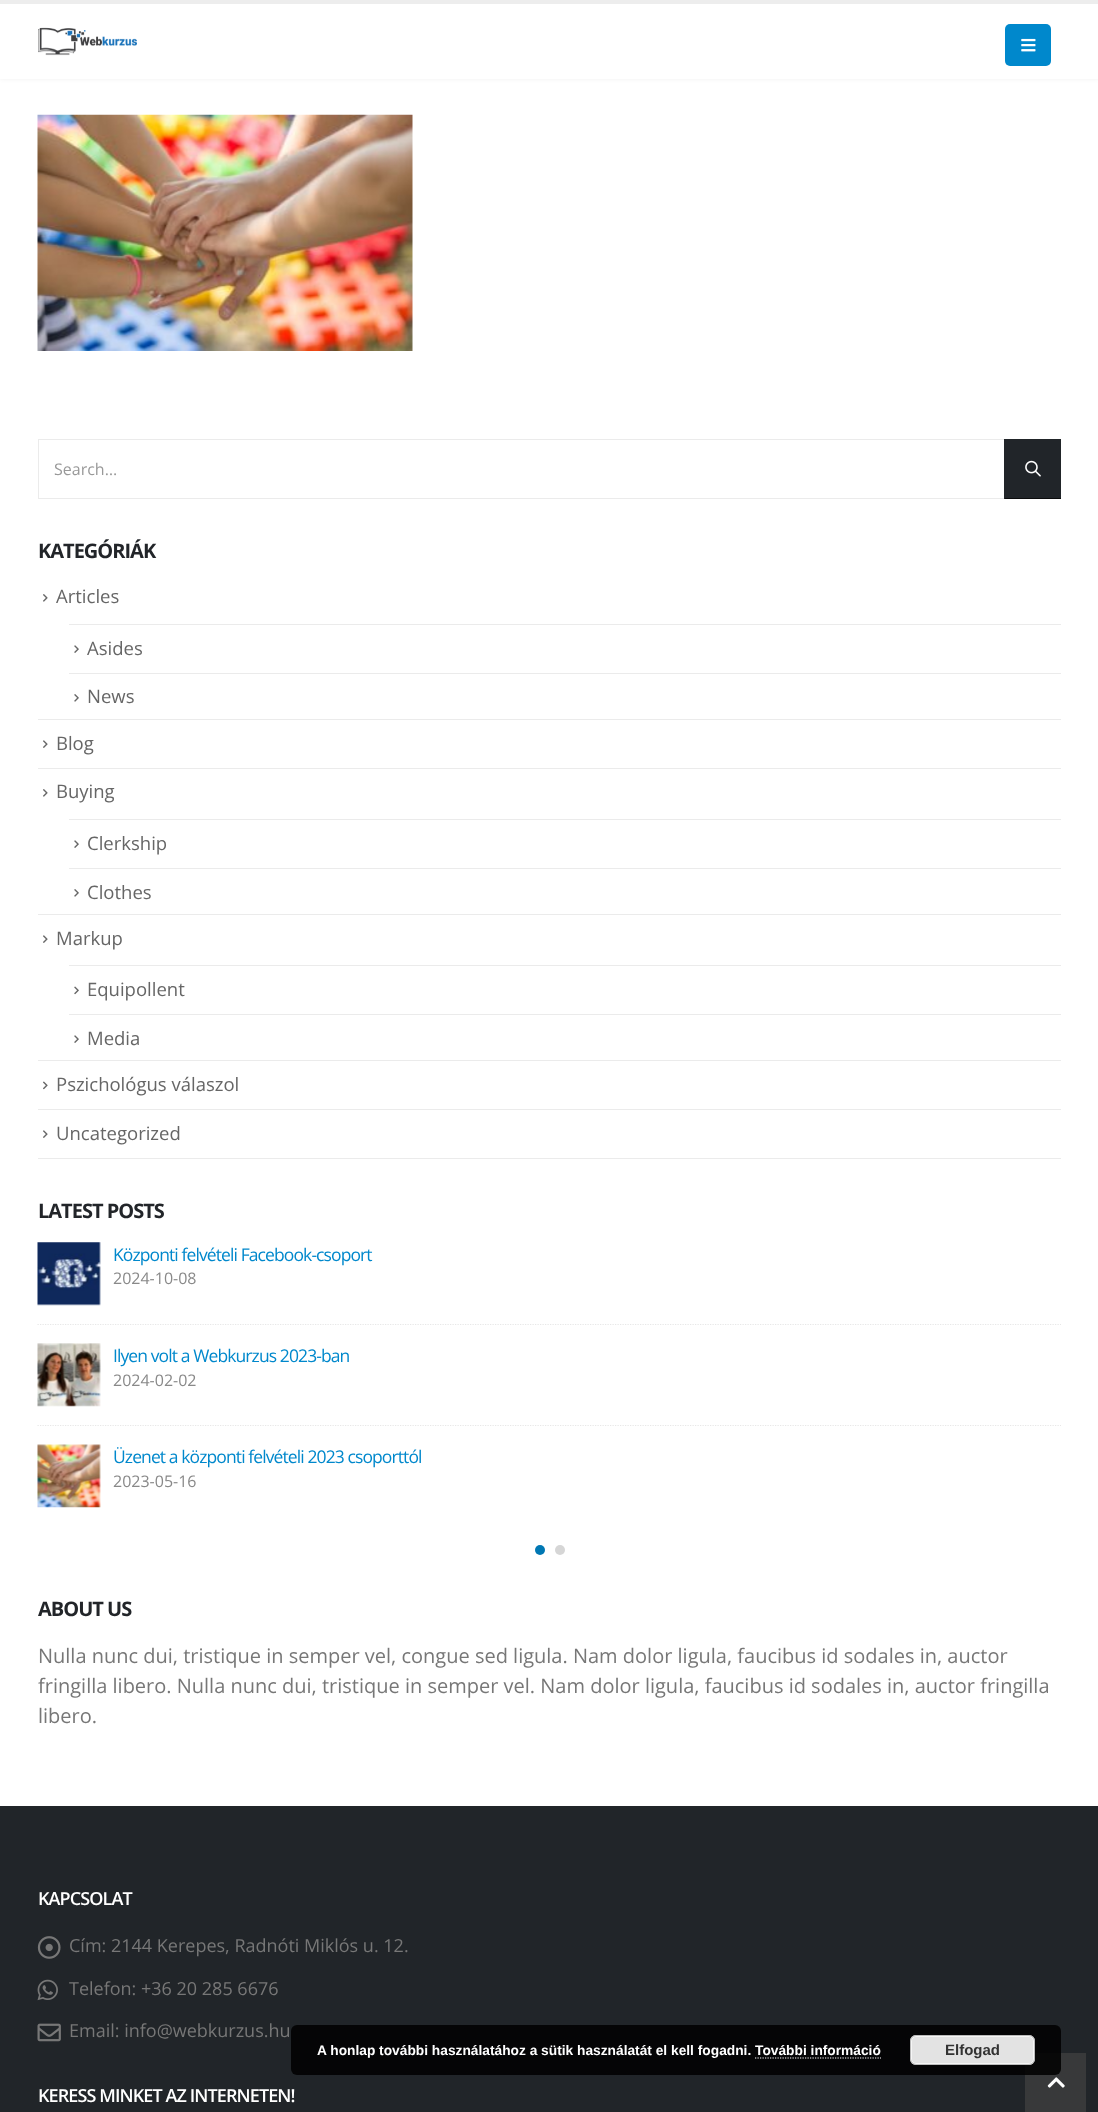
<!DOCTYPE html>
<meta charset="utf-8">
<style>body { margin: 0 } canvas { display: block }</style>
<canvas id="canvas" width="1098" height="2112"></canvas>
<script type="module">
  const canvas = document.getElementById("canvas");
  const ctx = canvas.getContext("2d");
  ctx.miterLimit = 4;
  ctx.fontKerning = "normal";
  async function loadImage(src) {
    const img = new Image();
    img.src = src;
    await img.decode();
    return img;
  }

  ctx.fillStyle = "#ffffff";
  ctx.fillRect(0, 0, 1098, 2112);
  ctx.fillStyle = "rgba(0, 0, 0, 0.06)";
  ctx.filter = "blur(2px)";
  ctx.beginPath();
  ctx.rect(0, 0, 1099, 79);
  ctx.fill();
  ctx.filter = "none";
  ctx.fillStyle = "#ffffff";
  ctx.fillRect(0, 4, 1098, 75);
  ctx.fillStyle = "#ededed";
  ctx.fillRect(0, 0, 1098, 4);
  ctx.drawImage(await loadImage("img1.png"), 38, 27, 99, 29);
  ctx.fillStyle = "#0088cc";
  ctx.beginPath();
  ctx.roundRect(1005, 24, 46, 42, 5);
  ctx.fill();
  ctx.drawImage(await loadImage("img2.png"), 1021, 38, 15, 14);
  ctx.drawImage(await loadImage("img3.png"), 37, 114, 376, 237);
  ctx.strokeStyle = "#ebebeb";
  ctx.strokeRect(38.5, 439.5, 966, 59);
  ctx.font = "16px Open Sans";
  ctx.fillStyle = "#999999";
  ctx.fillText("Search…", 54, 475);
  ctx.fillStyle = "#212529";
  ctx.fillRect(1005, 439, 56, 59);
  ctx.fillStyle = "#0b0c0d";
  ctx.fillRect(1004, 498, 57, 1);
  ctx.fillStyle = "#212529";
  ctx.fillRect(1004, 439, 1, 60);
  ctx.drawImage(await loadImage("img4.png"), 1025, 460, 16, 17);
  ctx.letterSpacing = "-1px";
  ctx.font = "bold 20px Open Sans";
  ctx.fillStyle = "#222529";
  ctx.fillText("KATEGÓRIÁK", 38, 558);
  ctx.fillStyle = "#ebebeb";
  ctx.fillRect(38, 1158, 1023, 1);
  ctx.drawImage(await loadImage("img5.png"), 43, 594, 5, 8);
  ctx.letterSpacing = "0px";
  ctx.font = "18.5px Open Sans";
  ctx.fillStyle = "#666666";
  ctx.fillText("Articles", 56, 603);
  ctx.fillStyle = "#ebebeb";
  ctx.fillRect(69, 624, 992, 1);
  ctx.drawImage(await loadImage("img6.png"), 74, 645, 5, 8);
  ctx.fillStyle = "#666666";
  ctx.fillText("Asides", 87, 655);
  ctx.fillStyle = "#ebebeb";
  ctx.fillRect(69, 673, 992, 1);
  ctx.drawImage(await loadImage("img7.png"), 74, 694, 5, 8);
  ctx.fillStyle = "#666666";
  ctx.fillText("News", 87, 703);
  ctx.fillStyle = "#ebebeb";
  ctx.fillRect(38, 719, 1023, 1);
  ctx.drawImage(await loadImage("img8.png"), 43, 740, 5, 8);
  ctx.fillStyle = "#666666";
  ctx.fillText("Blog", 56, 750);
  ctx.fillStyle = "#ebebeb";
  ctx.fillRect(38, 768, 1023, 1);
  ctx.drawImage(await loadImage("img5.png"), 43, 789, 5, 8);
  ctx.fillStyle = "#666666";
  ctx.fillText("Buying", 56, 798);
  ctx.fillStyle = "#ebebeb";
  ctx.fillRect(69, 819, 992, 1);
  ctx.drawImage(await loadImage("img6.png"), 74, 840, 5, 8);
  ctx.fillStyle = "#666666";
  ctx.fillText("Clerkship", 87, 850);
  ctx.fillStyle = "#ebebeb";
  ctx.fillRect(69, 868, 992, 1);
  ctx.drawImage(await loadImage("img7.png"), 74, 889, 5, 8);
  ctx.fillStyle = "#666666";
  ctx.fillText("Clothes", 87, 899);
  ctx.fillStyle = "#ebebeb";
  ctx.fillRect(38, 914, 1023, 1);
  ctx.drawImage(await loadImage("img8.png"), 43, 935, 5, 8);
  ctx.fillStyle = "#666666";
  ctx.fillText("Markup", 56, 945);
  ctx.fillStyle = "#ebebeb";
  ctx.fillRect(69, 965, 992, 1);
  ctx.drawImage(await loadImage("img9.png"), 74, 986, 5, 9);
  ctx.fillStyle = "#666666";
  ctx.fillText("Equipollent", 87, 996);
  ctx.fillStyle = "#ebebeb";
  ctx.fillRect(69, 1014, 992, 1);
  ctx.drawImage(await loadImage("img6.png"), 74, 1035, 5, 8);
  ctx.fillStyle = "#666666";
  ctx.fillText("Media", 87, 1045);
  ctx.fillStyle = "#ebebeb";
  ctx.fillRect(38, 1060, 1023, 1);
  ctx.drawImage(await loadImage("img10.png"), 43, 1081, 5, 9);
  ctx.fillStyle = "#666666";
  ctx.fillText("Pszichológus válaszol", 56, 1091);
  ctx.fillStyle = "#ebebeb";
  ctx.fillRect(38, 1109, 1023, 1);
  ctx.drawImage(await loadImage("img8.png"), 43, 1130, 5, 8);
  ctx.fillStyle = "#666666";
  ctx.fillText("Uncategorized", 56, 1140);
  ctx.letterSpacing = "-1px";
  ctx.font = "bold 20px Open Sans";
  ctx.fillStyle = "#222529";
  ctx.fillText("LATEST POSTS", 38, 1218);
  ctx.drawImage(await loadImage("img11.png"), 37, 1242, 64, 64);
  ctx.letterSpacing = "-0.9px";
  ctx.font = "17.5px Open Sans";
  ctx.fillStyle = "#0088cc";
  ctx.fillText("Központi felvételi Facebook-csoport", 113, 1261);
  ctx.letterSpacing = "0px";
  ctx.font = "16px Open Sans";
  ctx.fillStyle = "#898989";
  ctx.fillText("2024-10-08", 113, 1284);
  ctx.beginPath();
  ctx.moveTo(37.5, 1324.5);
  ctx.lineTo(1061, 1324.5);
  ctx.strokeStyle = "#e7e7e7";
  ctx.lineWidth = 1.2;
  ctx.setLineDash([1.25, 1.25]);
  ctx.stroke();
  ctx.drawImage(await loadImage("img12.png"), 37, 1343, 64, 64);
  ctx.letterSpacing = "-0.9px";
  ctx.font = "17.5px Open Sans";
  ctx.fillStyle = "#0088cc";
  ctx.fillText("Ilyen volt a Webkurzus 2023-ban", 113, 1362);
  ctx.letterSpacing = "0px";
  ctx.font = "16px Open Sans";
  ctx.fillStyle = "#898989";
  ctx.fillText("2024-02-02", 113, 1386);
  ctx.beginPath();
  ctx.moveTo(37.5, 1425.5);
  ctx.lineTo(1061, 1425.5);
  ctx.stroke();
  ctx.drawImage(await loadImage("img13.png"), 37, 1444, 64, 64);
  ctx.letterSpacing = "-0.9px";
  ctx.font = "17.5px Open Sans";
  ctx.fillStyle = "#0088cc";
  ctx.fillText("Üzenet a központi felvételi 2023 csoporttól", 113, 1463);
  ctx.letterSpacing = "0px";
  ctx.font = "16px Open Sans";
  ctx.fillStyle = "#898989";
  ctx.fillText("2023-05-16", 113, 1487);
  ctx.fillStyle = "#0077b3";
  ctx.beginPath();
  ctx.arc(540, 1550, 5, 0, Math.PI * 2);
  ctx.fill();
  ctx.fillStyle = "#d6d6d6";
  ctx.beginPath();
  ctx.arc(560, 1550, 5, 0, Math.PI * 2);
  ctx.fill();
  ctx.letterSpacing = "-1px";
  ctx.font = "bold 20px Open Sans";
  ctx.fillStyle = "#222529";
  ctx.fillText("ABOUT US", 38, 1616);
  ctx.letterSpacing = "0px";
  ctx.font = "20px Open Sans";
  ctx.fillStyle = "#777777";
  ctx.fillText("Nulla nunc dui, tristique in semper vel, congue sed ligula. Nam dolor ligula, faucibus id sodales in, auctor", 38, 1663);
  ctx.fillText("fringilla libero. Nulla nunc dui, tristique in semper vel. Nam dolor ligula, faucibus id sodales in, auctor fringilla", 38, 1693);
  ctx.fillText("libero.", 38, 1723);
  ctx.fillStyle = "#212529";
  ctx.fillRect(0, 1806, 1098, 306);
  ctx.letterSpacing = "-0.9px";
  ctx.font = "600 18px Open Sans";
  ctx.fillStyle = "#ffffff";
  ctx.fillText("KAPCSOLAT", 38, 1905);
  ctx.drawImage(await loadImage("img14.png"), 37, 1936, 24, 23);
  ctx.letterSpacing = "0px";
  ctx.font = "18px Open Sans";
  ctx.fillStyle = "#777777";
  ctx.fillText("Cím: 2144 Kerepes, Radnóti Miklós u. 12.", 69, 1952);
  ctx.drawImage(await loadImage("img15.png"), 37, 1979, 21, 22);
  ctx.fillText("Telefon: +36 20 285 6676", 69, 1995);
  ctx.drawImage(await loadImage("img16.png"), 37, 2023, 24, 19);
  ctx.fillText("Email: info@webkurzus.hu", 69, 2037);
  ctx.letterSpacing = "-0.9px";
  ctx.font = "600 18px Open Sans";
  ctx.fillStyle = "#ffffff";
  ctx.fillText("KERESS MINKET AZ INTERNETEN!", 38, 2102);
  ctx.fillStyle = "#38393a";
  ctx.fillRect(1025, 2053, 61, 59);
  ctx.fillStyle = "rgba(0, 0, 0, 0.85)";
  ctx.beginPath();
  ctx.roundRect(291, 2025, 770, 50, 6);
  ctx.fill();
  ctx.letterSpacing = "0px";
  ctx.font = "bold 13.75px Liberation Sans";
  ctx.fillStyle = "#ffffff";
  ctx.fillText("A honlap további használatához a sütik használatát el kell fogadni. További információ", 317, 2055);
  ctx.fillStyle = "#e3e3e3";
  ctx.beginPath();
  ctx.roundRect(910, 2035, 125, 30, 6);
  ctx.fill();
  ctx.beginPath();
  ctx.roundRect(911.5, 2036.5, 122, 27, 4.5);
  ctx.strokeStyle = "#f6f6f6";
  ctx.lineWidth = 1;
  ctx.setLineDash([]);
  ctx.stroke();
  ctx.beginPath();
  ctx.roundRect(910.5, 2035.5, 124, 29, 5.5);
  ctx.strokeStyle = "#bbbbbb";
  ctx.stroke();
  ctx.font = "bold 15px Liberation Sans";
  ctx.fillStyle = "#333333";
  ctx.fillText("Elfogad", 945, 2055);
  ctx.beginPath();
  ctx.moveTo(755, 2058);
  ctx.lineTo(881, 2058);
  ctx.strokeStyle = "#ffffff";
  ctx.lineWidth = 1.2;
  ctx.setLineDash([1.25, 1.25]);
  ctx.stroke();
  ctx.drawImage(await loadImage("img17.png"), 1047, 2077, 18, 11);
</script>
